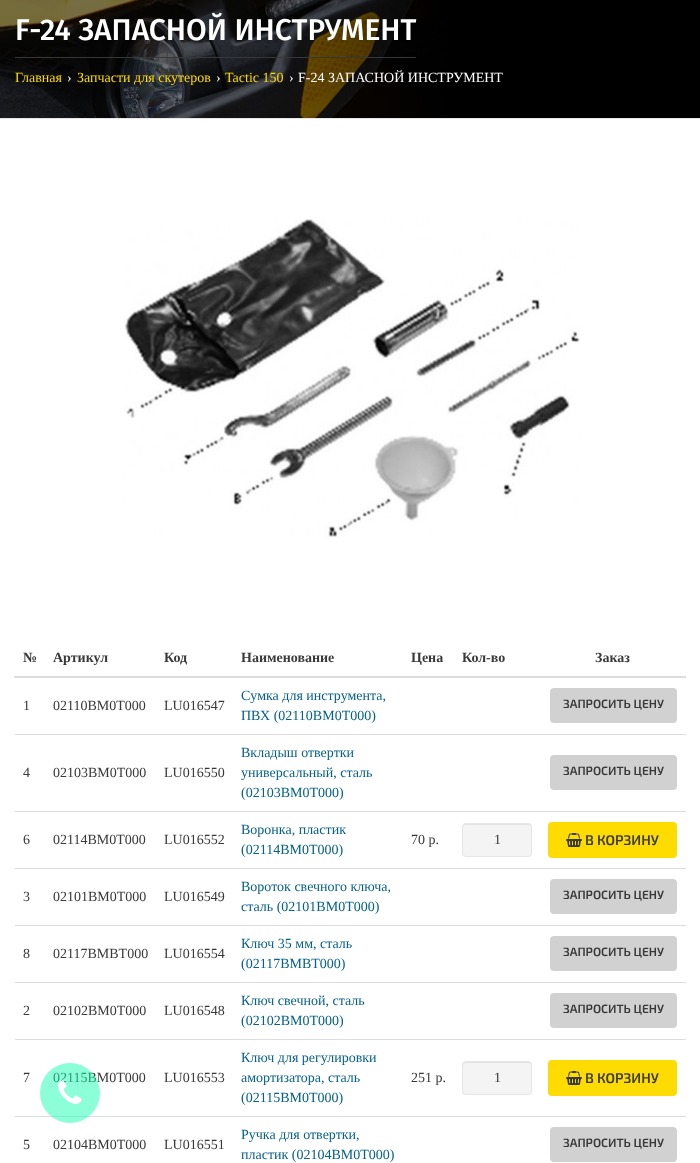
<!DOCTYPE html>
<meta charset="utf-8">
<style>body { margin: 0 } canvas { display: block }</style>
<canvas id="canvas" width="700" height="1163"></canvas>
<script type="module">
  const canvas = document.getElementById("canvas");
  const ctx = canvas.getContext("2d");
  ctx.miterLimit = 4;
  ctx.fontKerning = "normal";
  async function loadImage(src) {
    const img = new Image();
    img.src = src;
    await img.decode();
    return img;
  }

  ctx.fillStyle = "#ffffff";
  ctx.fillRect(0, 0, 700, 1163);
  ctx.drawImage(await loadImage("img1.png"), 0, 0, 700, 118);
  ctx.fillStyle = "#e6e6e6";
  ctx.fillRect(0, 118, 700, 1);
  ctx.fillStyle = "#373737";
  ctx.fillRect(15, 57, 401, 1);
  ctx.font = "500 30px Fira Sans";
  ctx.fillStyle = "#ffffff";
  ctx.fillText("F-24 ЗАПАСНОЙ ИНСТРУМЕНТ", 15, 40);
  ctx.font = "14px Liberation Serif";
  ctx.fillStyle = "#fedb01";
  ctx.fillText("Главная", 15, 82);
  ctx.fillStyle = "#ffffff";
  ctx.fillText("›", 67, 82);
  ctx.fillStyle = "#fedb01";
  ctx.fillText("Запчасти для скутеров", 77, 82);
  ctx.fillStyle = "#ffffff";
  ctx.fillText("›", 216, 82);
  ctx.fillStyle = "#fedb01";
  ctx.fillText("Tactic 150", 225, 82);
  ctx.fillStyle = "#ffffff";
  ctx.fillText("›", 289, 82);
  ctx.fillText("F-24 ЗАПАСНОЙ ИНСТРУМЕНТ", 298, 82);
  ctx.drawImage(await loadImage("img2.png"), 124, 219, 456, 319);
  ctx.font = "bold 14px Liberation Serif";
  ctx.fillStyle = "#393939";
  ctx.fillText("№", 23, 662);
  ctx.fillText("Артикул", 53, 662);
  ctx.fillText("Код", 164, 662);
  ctx.fillText("Наименование", 241, 662);
  ctx.fillText("Цена", 411, 662);
  ctx.fillText("Кол-во", 462, 662);
  ctx.fillStyle = "#dddddd";
  ctx.fillRect(14, 676, 672, 2);
  ctx.fillStyle = "#393939";
  ctx.fillText("Заказ", 595, 662);
  ctx.font = "14px Liberation Serif";
  ctx.fillText("1", 23, 710);
  ctx.fillText("02110BM0T000", 53, 710);
  ctx.fillText("LU016547", 164, 710);
  ctx.fillStyle = "#07618a";
  ctx.fillText("Cумка для инструмента,", 241, 700);
  ctx.fillText("ПВХ (02110BM0T000)", 241, 720);
  ctx.fillStyle = "#d1d1d1";
  ctx.beginPath();
  ctx.roundRect(550, 688, 127, 35, 4);
  ctx.fill();
  ctx.font = "600 12px 'Exo 2'";
  ctx.fillStyle = "#393939";
  ctx.fillText("ЗАПРОСИТЬ ЦЕНУ", 563, 708);
  ctx.font = "14px Liberation Serif";
  ctx.fillText("4", 23, 777);
  ctx.fillText("02103BM0T000", 53, 777);
  ctx.fillText("LU016550", 164, 777);
  ctx.fillStyle = "#07618a";
  ctx.fillText("Вкладыш отвертки", 241, 757);
  ctx.fillText("универсальный, сталь", 241, 777);
  ctx.fillText("(02103BM0T000)", 241, 797);
  ctx.fillStyle = "#dddddd";
  ctx.fillRect(15, 734, 671, 1);
  ctx.fillStyle = "#d1d1d1";
  ctx.beginPath();
  ctx.roundRect(550, 755, 127, 35, 4);
  ctx.fill();
  ctx.font = "600 12px 'Exo 2'";
  ctx.fillStyle = "#393939";
  ctx.fillText("ЗАПРОСИТЬ ЦЕНУ", 563, 775);
  ctx.font = "14px Liberation Serif";
  ctx.fillText("6", 23, 844);
  ctx.fillText("02114BM0T000", 53, 844);
  ctx.fillText("LU016552", 164, 844);
  ctx.fillStyle = "#07618a";
  ctx.fillText("Воронка, пластик", 241, 834);
  ctx.fillText("(02114BM0T000)", 241, 854);
  ctx.fillStyle = "#393939";
  ctx.fillText("70 р.", 411, 844);
  ctx.fillStyle = "#f4f4f4";
  ctx.beginPath();
  ctx.roundRect(462, 823, 70, 34, 4);
  ctx.fill();
  ctx.fillStyle = "#e2e2e2";
  ctx.beginPath();
  ctx.moveTo(466, 825);
  ctx.lineTo(528, 825);
  ctx.bezierCurveTo(530, 825, 531, 826, 531, 828);
  ctx.bezierCurveTo(531, 821, 522, 824, 518, 824);
  ctx.lineTo(476, 824);
  ctx.bezierCurveTo(472, 824, 463, 821, 463, 828);
  ctx.bezierCurveTo(463, 826, 464, 825, 466, 825);
  ctx.closePath();
  ctx.fill();
  ctx.beginPath();
  ctx.roundRect(462.5, 823.5, 69, 33, 3.5);
  ctx.strokeStyle = "#e6e6e6";
  ctx.stroke();
  ctx.fillStyle = "#393939";
  ctx.fillText("1", 494, 844);
  ctx.fillStyle = "#dddddd";
  ctx.fillRect(15, 811, 671, 1);
  ctx.fillStyle = "#fedb01";
  ctx.beginPath();
  ctx.roundRect(549, 823, 127, 34, 3);
  ctx.fill();
  ctx.strokeStyle = "#fedb01";
  ctx.lineWidth = 2;
  ctx.stroke();
  ctx.drawImage(await loadImage("img3.png"), 566, 833, 16, 14);
  ctx.font = "600 14px 'Exo 2'";
  ctx.fillStyle = "#393939";
  ctx.fillText("В КОРЗИНУ", 585, 845);
  ctx.font = "14px Liberation Serif";
  ctx.fillText("3", 23, 901);
  ctx.fillText("02101BM0T000", 53, 901);
  ctx.fillText("LU016549", 164, 901);
  ctx.fillStyle = "#07618a";
  ctx.fillText("Вороток свечного ключа,", 241, 891);
  ctx.fillText("сталь (02101BM0T000)", 241, 911);
  ctx.fillStyle = "#dddddd";
  ctx.fillRect(15, 868, 671, 1);
  ctx.fillStyle = "#d1d1d1";
  ctx.beginPath();
  ctx.roundRect(550, 879, 127, 35, 4);
  ctx.fill();
  ctx.font = "600 12px 'Exo 2'";
  ctx.fillStyle = "#393939";
  ctx.fillText("ЗАПРОСИТЬ ЦЕНУ", 563, 899);
  ctx.font = "14px Liberation Serif";
  ctx.fillText("8", 23, 958);
  ctx.fillText("02117BMBT000", 53, 958);
  ctx.fillText("LU016554", 164, 958);
  ctx.fillStyle = "#07618a";
  ctx.fillText("Ключ 35 мм, сталь", 241, 948);
  ctx.fillText("(02117BMBT000)", 241, 968);
  ctx.fillStyle = "#dddddd";
  ctx.fillRect(15, 925, 671, 1);
  ctx.fillStyle = "#d1d1d1";
  ctx.beginPath();
  ctx.roundRect(550, 936, 127, 35, 4);
  ctx.fill();
  ctx.font = "600 12px 'Exo 2'";
  ctx.fillStyle = "#393939";
  ctx.fillText("ЗАПРОСИТЬ ЦЕНУ", 563, 956);
  ctx.font = "14px Liberation Serif";
  ctx.fillText("2", 23, 1015);
  ctx.fillText("02102BM0T000", 53, 1015);
  ctx.fillText("LU016548", 164, 1015);
  ctx.fillStyle = "#07618a";
  ctx.fillText("Ключ cвечной, сталь", 241, 1005);
  ctx.fillText("(02102BM0T000)", 241, 1025);
  ctx.fillStyle = "#dddddd";
  ctx.fillRect(15, 982, 671, 1);
  ctx.fillStyle = "#d1d1d1";
  ctx.beginPath();
  ctx.roundRect(550, 993, 127, 35, 4);
  ctx.fill();
  ctx.font = "600 12px 'Exo 2'";
  ctx.fillStyle = "#393939";
  ctx.fillText("ЗАПРОСИТЬ ЦЕНУ", 563, 1013);
  ctx.font = "14px Liberation Serif";
  ctx.fillText("7", 23, 1082);
  ctx.fillText("02115BM0T000", 53, 1082);
  ctx.fillText("LU016553", 164, 1082);
  ctx.fillStyle = "#07618a";
  ctx.fillText("Ключ для регулировки", 241, 1062);
  ctx.fillText("амортизатора, сталь", 241, 1082);
  ctx.fillText("(02115BM0T000)", 241, 1102);
  ctx.fillStyle = "#393939";
  ctx.fillText("251 р.", 411, 1082);
  ctx.fillStyle = "#f4f4f4";
  ctx.beginPath();
  ctx.roundRect(462, 1061, 70, 34, 4);
  ctx.fill();
  ctx.fillStyle = "#e2e2e2";
  ctx.beginPath();
  ctx.moveTo(466, 1063);
  ctx.lineTo(528, 1063);
  ctx.bezierCurveTo(530, 1063, 531, 1064, 531, 1066);
  ctx.bezierCurveTo(531, 1059, 522, 1062, 518, 1062);
  ctx.lineTo(476, 1062);
  ctx.bezierCurveTo(472, 1062, 463, 1059, 463, 1066);
  ctx.bezierCurveTo(463, 1064, 464, 1063, 466, 1063);
  ctx.closePath();
  ctx.fill();
  ctx.beginPath();
  ctx.roundRect(462.5, 1061.5, 69, 33, 3.5);
  ctx.strokeStyle = "#e6e6e6";
  ctx.lineWidth = 1;
  ctx.stroke();
  ctx.fillStyle = "#393939";
  ctx.fillText("1", 494, 1082);
  ctx.fillStyle = "#dddddd";
  ctx.fillRect(15, 1039, 671, 1);
  ctx.fillStyle = "#fedb01";
  ctx.beginPath();
  ctx.roundRect(549, 1061, 127, 34, 3);
  ctx.fill();
  ctx.strokeStyle = "#fedb01";
  ctx.lineWidth = 2;
  ctx.stroke();
  ctx.drawImage(await loadImage("img3.png"), 566, 1071, 16, 14);
  ctx.font = "600 14px 'Exo 2'";
  ctx.fillStyle = "#393939";
  ctx.fillText("В КОРЗИНУ", 585, 1083);
  ctx.font = "14px Liberation Serif";
  ctx.fillText("5", 23, 1149);
  ctx.fillText("02104BM0T000", 53, 1149);
  ctx.fillText("LU016551", 164, 1149);
  ctx.fillStyle = "#07618a";
  ctx.fillText("Ручка для отвертки,", 241, 1139);
  ctx.fillText("пластик (02104BM0T000)", 241, 1159);
  ctx.fillStyle = "#dddddd";
  ctx.fillRect(15, 1116, 671, 1);
  ctx.fillStyle = "#d1d1d1";
  ctx.beginPath();
  ctx.roundRect(550, 1127, 127, 35, 4);
  ctx.fill();
  ctx.font = "600 12px 'Exo 2'";
  ctx.fillStyle = "#393939";
  ctx.fillText("ЗАПРОСИТЬ ЦЕНУ", 563, 1147);
  ctx.fillStyle = "rgba(26, 255, 179, 0.5)";
  ctx.beginPath();
  ctx.arc(70, 1093, 30, 0, Math.PI * 2);
  ctx.fill();
  ctx.drawImage(await loadImage("img4.png"), 58, 1080, 24, 24);
</script>
